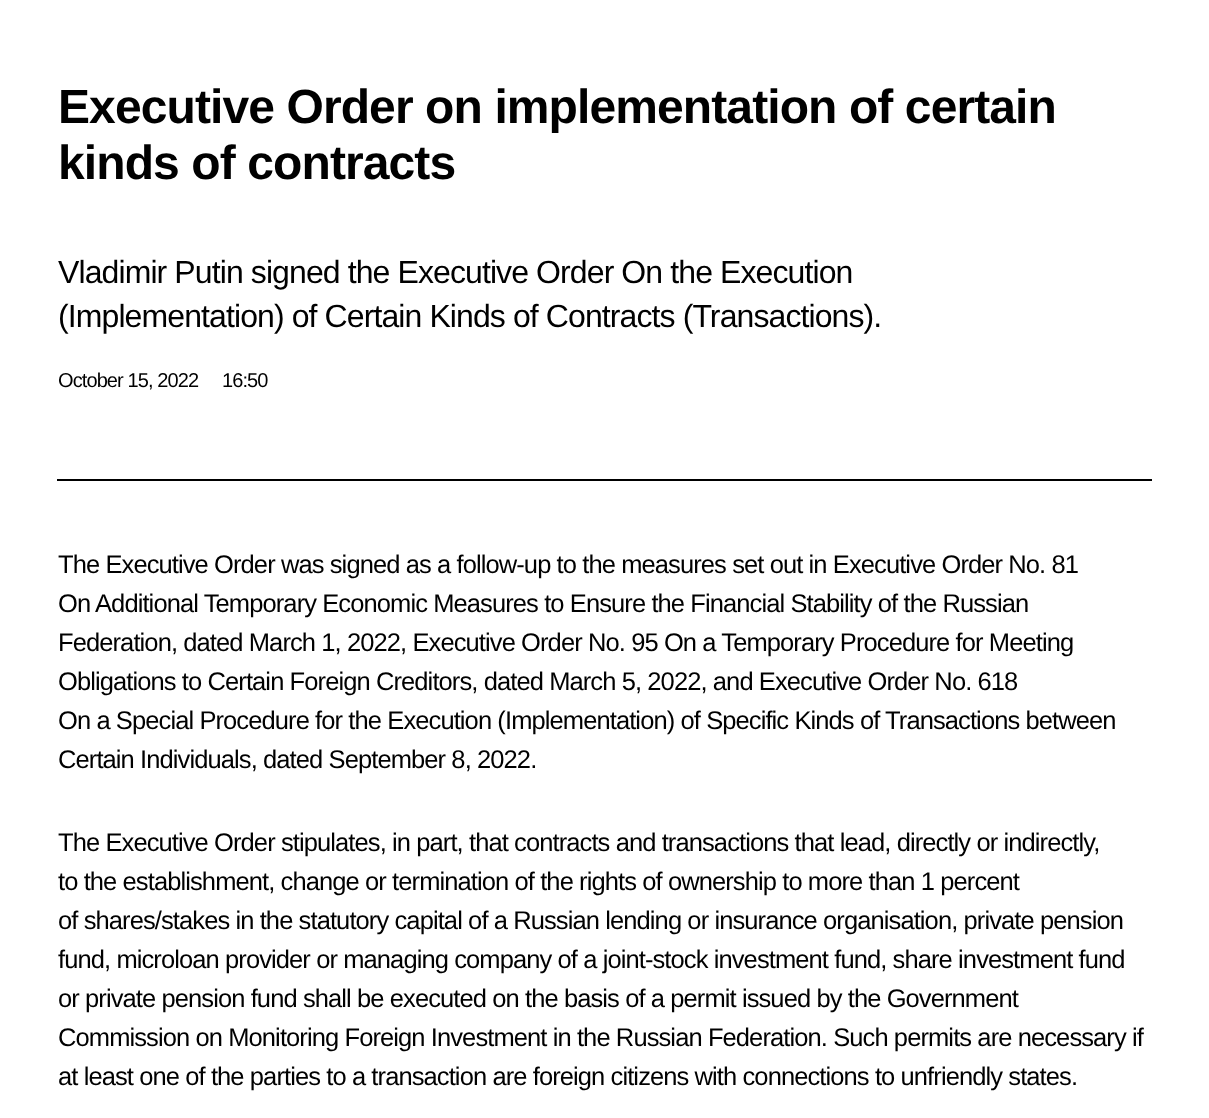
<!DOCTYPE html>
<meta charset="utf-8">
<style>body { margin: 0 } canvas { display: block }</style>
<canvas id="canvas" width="1209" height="1118"></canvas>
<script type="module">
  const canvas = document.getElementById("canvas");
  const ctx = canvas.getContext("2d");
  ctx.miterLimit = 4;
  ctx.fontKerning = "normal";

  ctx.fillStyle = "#ffffff";
  ctx.fillRect(0, 0, 1209, 1118);
  ctx.fillStyle = "#000000";
  ctx.fillRect(57, 479, 1095, 2);
  ctx.letterSpacing = "-0.9px";
  ctx.font = "bold 48px Liberation Sans";
  ctx.fillText("Executive Order on implementation of certain", 58, 123);
  ctx.fillText("kinds of contracts", 58, 179);
  ctx.font = "32px Liberation Sans";
  ctx.fillText("Vladimir Putin signed the Executive Order On the Execution", 58, 283);
  ctx.fillText("(Implementation) of Certain Kinds of Contracts (Transactions).", 58, 327);
  ctx.font = "20px Liberation Sans";
  ctx.fillText("October 15, 2022", 58, 387);
  ctx.fillText("16:50", 222, 387);
  ctx.font = "25.5px Liberation Sans";
  ctx.fillText("The Executive Order was signed as a follow-up to the measures set out in Executive Order No. 81", 58, 573);
  ctx.fillText("On Additional Temporary Economic Measures to Ensure the Financial Stability of the Russian", 58, 612);
  ctx.fillText("Federation, dated March 1, 2022, Executive Order No. 95 On a Temporary Procedure for Meeting", 58, 651);
  ctx.fillText("Obligations to Certain Foreign Creditors, dated March 5, 2022, and Executive Order No. 618", 58, 690);
  ctx.fillText("On a Special Procedure for the Execution (Implementation) of Specific Kinds of Transactions between", 58, 729);
  ctx.fillText("Certain Individuals, dated September 8, 2022.", 58, 768);
  ctx.fillText("The Executive Order stipulates, in part, that contracts and transactions that lead, directly or indirectly,", 58, 851);
  ctx.fillText("to the establishment, change or termination of the rights of ownership to more than 1 percent", 58, 890);
  ctx.fillText("of shares/stakes in the statutory capital of a Russian lending or insurance organisation, private pension", 58, 929);
  ctx.fillText("fund, microloan provider or managing company of a joint-stock investment fund, share investment fund", 58, 968);
  ctx.fillText("or private pension fund shall be executed on the basis of a permit issued by the Government", 58, 1007);
  ctx.fillText("Commission on Monitoring Foreign Investment in the Russian Federation. Such permits are necessary if", 58, 1046);
  ctx.fillText("at least one of the parties to a transaction are foreign citizens with connections to unfriendly states.", 58, 1085);
</script>
